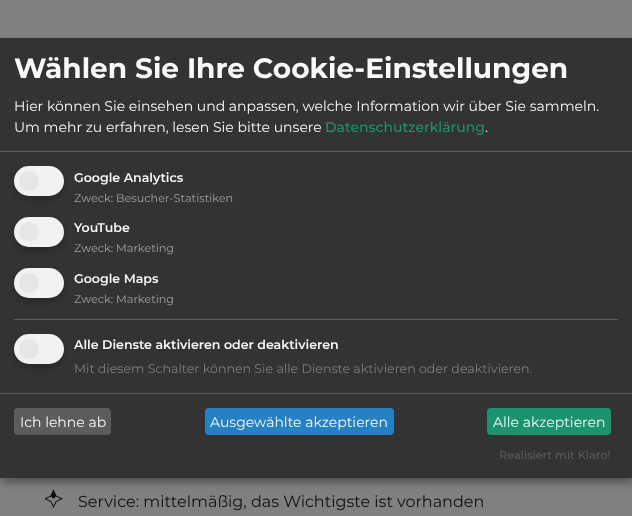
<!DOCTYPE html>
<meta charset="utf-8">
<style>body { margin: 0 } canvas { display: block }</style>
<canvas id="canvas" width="632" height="516"></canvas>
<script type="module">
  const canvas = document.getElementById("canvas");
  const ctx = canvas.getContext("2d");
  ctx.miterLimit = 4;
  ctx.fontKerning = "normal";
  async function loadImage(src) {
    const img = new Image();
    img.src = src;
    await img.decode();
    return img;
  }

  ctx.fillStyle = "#808080";
  ctx.fillRect(0, 0, 632, 516);
  ctx.drawImage(await loadImage("img1.png"), 45, 489, 18, 19);
  ctx.fillStyle = "rgba(0, 0, 0, 0.19)";
  ctx.filter = "blur(5px)";
  ctx.beginPath();
  ctx.rect(5, 43, 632, 440);
  ctx.fill();
  ctx.filter = "none";
  ctx.fillStyle = "rgba(0, 0, 0, 0.2)";
  ctx.filter = "blur(3px)";
  ctx.beginPath();
  ctx.rect(0, 42, 632, 440);
  ctx.fill();
  ctx.filter = "none";
  ctx.fillStyle = "#333333";
  ctx.fillRect(0, 38, 632, 440);
  ctx.fillStyle = "#5c5c5c";
  ctx.fillRect(0, 151, 632, 1);
  ctx.font = "bold 28px Montserrat";
  ctx.fillStyle = "#fafafa";
  ctx.fillText("Wählen Sie Ihre Cookie-Einstellungen", 14, 78);
  ctx.font = "14px Montserrat";
  ctx.fillText("Hier können Sie einsehen und anpassen, welche Information wir über Sie sammeln.", 14, 111);
  ctx.fillText("Um mehr zu erfahren, lesen Sie bitte unsere", 14, 132);
  ctx.font = "500 14px Montserrat";
  ctx.fillStyle = "#1a936f";
  ctx.fillText("Datenschutzerklärung", 325, 132);
  ctx.font = "14px Montserrat";
  ctx.fillStyle = "#fafafa";
  ctx.fillText(".", 485, 132);
  ctx.fillStyle = "rgba(0, 0, 0, 0.2)";
  ctx.filter = "blur(3px)";
  ctx.beginPath();
  ctx.roundRect(14, 170, 50, 30, 15);
  ctx.fill();
  ctx.filter = "none";
  ctx.fillStyle = "#f2f2f2";
  ctx.beginPath();
  ctx.roundRect(14, 166, 50, 30, 15);
  ctx.fill();
  ctx.fillStyle = "#e6e6e6";
  ctx.beginPath();
  ctx.arc(29, 181, 10, 0, Math.PI * 2);
  ctx.fill();
  ctx.font = "600 12.6px Montserrat";
  ctx.fillStyle = "#fafafa";
  ctx.fillText("Google Analytics", 74, 182);
  ctx.font = "11.25px Montserrat";
  ctx.fillStyle = "#a0a0a0";
  ctx.fillText("Zweck: Besucher-Statistiken", 74, 202);
  ctx.fillStyle = "rgba(0, 0, 0, 0.2)";
  ctx.filter = "blur(3px)";
  ctx.beginPath();
  ctx.roundRect(14, 221, 50, 30, 15);
  ctx.fill();
  ctx.filter = "none";
  ctx.fillStyle = "#f2f2f2";
  ctx.beginPath();
  ctx.roundRect(14, 217, 50, 30, 15);
  ctx.fill();
  ctx.fillStyle = "#e6e6e6";
  ctx.beginPath();
  ctx.arc(29, 232, 10, 0, Math.PI * 2);
  ctx.fill();
  ctx.font = "600 12.6px Montserrat";
  ctx.fillStyle = "#fafafa";
  ctx.fillText("YouTube", 74, 232);
  ctx.font = "11.25px Montserrat";
  ctx.fillStyle = "#a0a0a0";
  ctx.fillText("Zweck: Marketing", 74, 252);
  ctx.fillStyle = "rgba(0, 0, 0, 0.2)";
  ctx.filter = "blur(3px)";
  ctx.beginPath();
  ctx.roundRect(14, 272, 50, 30, 15);
  ctx.fill();
  ctx.filter = "none";
  ctx.fillStyle = "#f2f2f2";
  ctx.beginPath();
  ctx.roundRect(14, 268, 50, 30, 15);
  ctx.fill();
  ctx.fillStyle = "#e6e6e6";
  ctx.beginPath();
  ctx.arc(29, 283, 10, 0, Math.PI * 2);
  ctx.fill();
  ctx.font = "600 12.6px Montserrat";
  ctx.fillStyle = "#fafafa";
  ctx.fillText("Google Maps", 74, 283);
  ctx.font = "11.25px Montserrat";
  ctx.fillStyle = "#a0a0a0";
  ctx.fillText("Zweck: Marketing", 74, 303);
  ctx.fillStyle = "#5c5c5c";
  ctx.fillRect(14, 319, 604, 1);
  ctx.fillStyle = "rgba(0, 0, 0, 0.2)";
  ctx.filter = "blur(3px)";
  ctx.beginPath();
  ctx.roundRect(14, 338, 50, 30, 15);
  ctx.fill();
  ctx.filter = "none";
  ctx.fillStyle = "#f2f2f2";
  ctx.beginPath();
  ctx.roundRect(14, 334, 50, 30, 15);
  ctx.fill();
  ctx.fillStyle = "#e6e6e6";
  ctx.beginPath();
  ctx.arc(29, 349, 10, 0, Math.PI * 2);
  ctx.fill();
  ctx.font = "600 12.6px Montserrat";
  ctx.fillStyle = "#fafafa";
  ctx.fillText("Alle Dienste aktivieren oder deaktivieren", 74, 349);
  ctx.font = "12.6px Montserrat";
  ctx.fillStyle = "#7c7c7c";
  ctx.fillText("Mit diesem Schalter können Sie alle Dienste aktivieren oder deaktivieren.", 74, 373);
  ctx.fillStyle = "#5c5c5c";
  ctx.fillRect(0, 393, 632, 1);
  ctx.beginPath();
  ctx.roundRect(14, 408, 97, 27, 4);
  ctx.fill();
  ctx.font = "14px Montserrat";
  ctx.fillStyle = "#fafafa";
  ctx.fillText("Ich lehne ab", 20, 427);
  ctx.fillStyle = "#2581c4";
  ctx.beginPath();
  ctx.roundRect(205, 408, 189, 27, 4);
  ctx.fill();
  ctx.fillStyle = "#fafafa";
  ctx.fillText("Ausgewählte akzeptieren", 210, 427);
  ctx.fillStyle = "#1a936f";
  ctx.beginPath();
  ctx.roundRect(487, 408, 124, 27, 4);
  ctx.fill();
  ctx.fillStyle = "#fafafa";
  ctx.fillText("Alle akzeptieren", 493, 427);
  ctx.font = "500 11.25px Montserrat";
  ctx.fillStyle = "#5c5c5c";
  ctx.fillText("Realisiert mit Klaro!", 499, 459);
  ctx.font = "16px Montserrat";
  ctx.fillStyle = "#111111";
  ctx.fillText("Service: mittelmäßig, das Wichtigste ist vorhanden", 78, 507);
</script>
